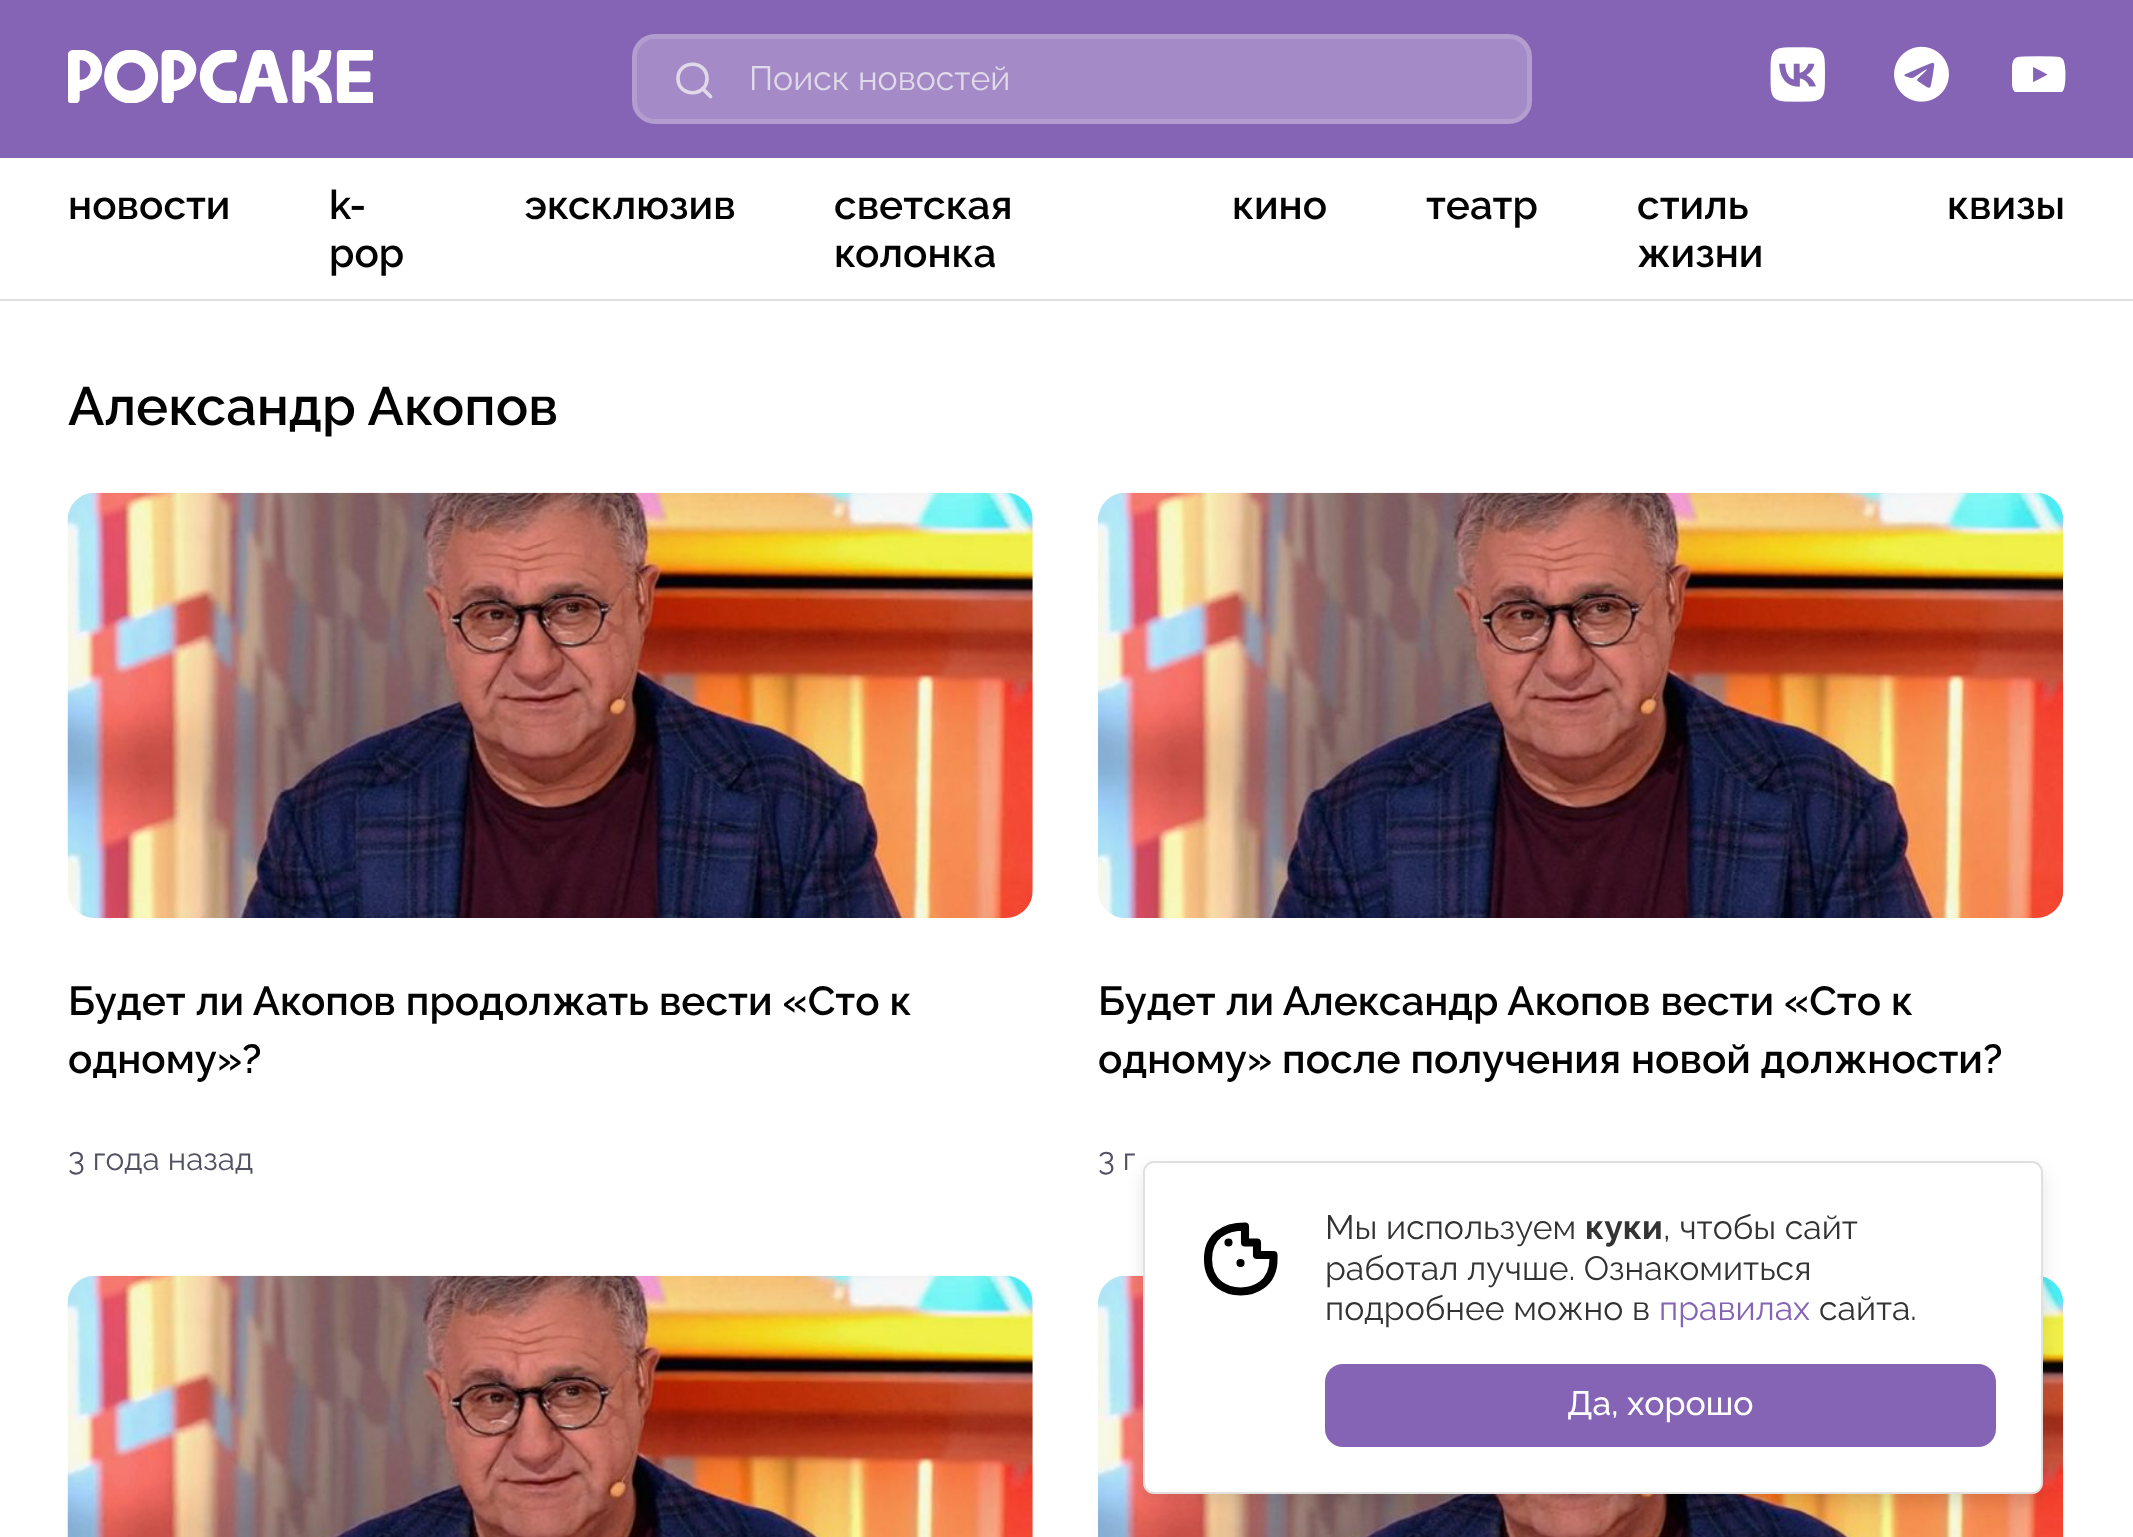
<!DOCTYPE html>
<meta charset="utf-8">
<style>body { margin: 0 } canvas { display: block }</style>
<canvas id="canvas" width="2133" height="1537"></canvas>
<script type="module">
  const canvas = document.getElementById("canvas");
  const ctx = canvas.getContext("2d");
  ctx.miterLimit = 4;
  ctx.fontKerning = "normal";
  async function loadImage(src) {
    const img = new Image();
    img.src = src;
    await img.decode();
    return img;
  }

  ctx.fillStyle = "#ffffff";
  ctx.fillRect(0, 0, 2133, 1537);
  ctx.fillStyle = "#8564b5";
  ctx.fillRect(0, 0, 2133, 158);
  ctx.drawImage(await loadImage("img1.png"), 68, 50, 305, 53);
  ctx.drawImage(await loadImage("img2.png"), 1770, 47, 55, 55);
  ctx.drawImage(await loadImage("img3.png"), 1894, 46, 55, 56);
  ctx.drawImage(await loadImage("img4.png"), 2012, 56, 54, 36);
  ctx.fillStyle = "#a48bc8";
  ctx.beginPath();
  ctx.roundRect(634.5, 36.5, 895, 85, 20.5);
  ctx.fill();
  ctx.strokeStyle = "#b29dce";
  ctx.lineWidth = 5;
  ctx.stroke();
  ctx.beginPath();
  ctx.moveTo(710.5, 96.5);
  ctx.lineTo(702.5, 88.5);
  ctx.moveTo(707, 78.5);
  ctx.bezierCurveTo(707, 97.5, 678, 97.5, 678, 78.5);
  ctx.bezierCurveTo(678, 59.5, 707, 59.5, 707, 78.5);
  ctx.closePath();
  ctx.strokeStyle = "#e0dae8";
  ctx.lineWidth = 3.6;
  ctx.lineCap = "round";
  ctx.lineJoin = "round";
  ctx.stroke();
  ctx.font = "33.75px Raleway";
  ctx.fillStyle = "#e0dae8";
  ctx.fillText("Поиск новостей", 749, 90);
  ctx.fillStyle = "#dedede";
  ctx.fillRect(0, 299, 2133, 2);
  ctx.font = "600 40.5px Raleway";
  ctx.fillStyle = "#030303";
  ctx.fillText("новости", 68, 219);
  ctx.fillText("k-", 329, 219);
  ctx.fillText("pop", 329, 267);
  ctx.fillText("эксклюзив", 524, 219);
  ctx.fillText("светская", 834, 219);
  ctx.fillText("колонка", 834, 267);
  ctx.fillText("кино", 1232, 219);
  ctx.fillText("театр", 1426, 219);
  ctx.fillText("стиль", 1637, 219);
  ctx.fillText("жизни", 1637, 267);
  ctx.fillText("квизы", 1947, 219);
  ctx.font = "600 54px Raleway";
  ctx.fillText("Александр Акопов", 68, 425);
  ctx.drawImage(await loadImage("img5.png"), 67, 492, 966, 426);
  ctx.font = "600 40.5px Raleway";
  ctx.fillText("Будет ли Акопов продолжать вести «Сто к", 68, 1015);
  ctx.fillText("одному»?", 68, 1073);
  ctx.font = "31.5px Raleway";
  ctx.fillStyle = "#515161";
  ctx.fillText("3 года назад", 68, 1170);
  ctx.drawImage(await loadImage("img6.png"), 1098, 492, 966, 426);
  ctx.font = "600 40.5px Raleway";
  ctx.fillStyle = "#030303";
  ctx.fillText("Будет ли Александр Акопов вести «Сто к", 1098, 1015);
  ctx.fillText("одному» после получения новой должности?", 1098, 1073);
  ctx.font = "31.5px Raleway";
  ctx.fillStyle = "#515161";
  ctx.fillText("3 г", 1098, 1170);
  ctx.drawImage(await loadImage("img7.png"), 67, 1275, 966, 262);
  ctx.drawImage(await loadImage("img8.png"), 1098, 1275, 966, 262);
  ctx.fillStyle = "rgba(0, 0, 0, 0.1)";
  ctx.filter = "blur(9px)";
  ctx.beginPath();
  ctx.roundRect(1143, 1170, 900, 333, 11);
  ctx.fill();
  ctx.filter = "none";
  ctx.fillStyle = "#ffffff";
  ctx.beginPath();
  ctx.roundRect(1144, 1162, 898, 331, 10);
  ctx.fill();
  ctx.strokeStyle = "#e0e0e0";
  ctx.lineWidth = 2;
  ctx.lineJoin = "miter";
  ctx.stroke();
  ctx.beginPath();
  ctx.moveTo(1208, 1259);
  ctx.bezierCurveTo(1208, 1236, 1224.5, 1226.5, 1245, 1226.5);
  ctx.lineTo(1245, 1242.5);
  ctx.lineTo(1257, 1242.5);
  ctx.lineTo(1257, 1255);
  ctx.lineTo(1273.5, 1255);
  ctx.lineTo(1273.5, 1259);
  ctx.bezierCurveTo(1273.5, 1285, 1253, 1291.5, 1240.5, 1291.5);
  ctx.bezierCurveTo(1228.5, 1291.5, 1208, 1285, 1208, 1259);
  ctx.closePath();
  ctx.moveTo(1228.5, 1242.5);
  ctx.lineTo(1228.5, 1242.5);
  ctx.moveTo(1240.5, 1263);
  ctx.lineTo(1240.5, 1263);
  ctx.strokeStyle = "#000000";
  ctx.lineWidth = 8.1;
  ctx.lineJoin = "round";
  ctx.stroke();
  ctx.font = "33.75px Raleway";
  ctx.fillStyle = "#333333";
  ctx.fillText("Мы используем", 1325, 1239);
  ctx.font = "bold 33.75px Raleway";
  ctx.fillText("куки", 1585, 1239);
  ctx.font = "33.75px Raleway";
  ctx.fillText(", чтобы сайт", 1663, 1239);
  ctx.fillText("работал лучше. Ознакомиться", 1325, 1280);
  ctx.fillText("подробнее можно в", 1325, 1320);
  ctx.fillStyle = "#8564b5";
  ctx.fillText("правилах", 1659, 1320);
  ctx.fillStyle = "#333333";
  ctx.fillText("сайта.", 1819, 1320);
  ctx.fillStyle = "#8564b5";
  ctx.beginPath();
  ctx.roundRect(1325, 1364, 671, 83, 18);
  ctx.fill();
  ctx.font = "500 33.75px Raleway";
  ctx.fillStyle = "#ffffff";
  ctx.fillText("Да, хорошо", 1567, 1415);
</script>
